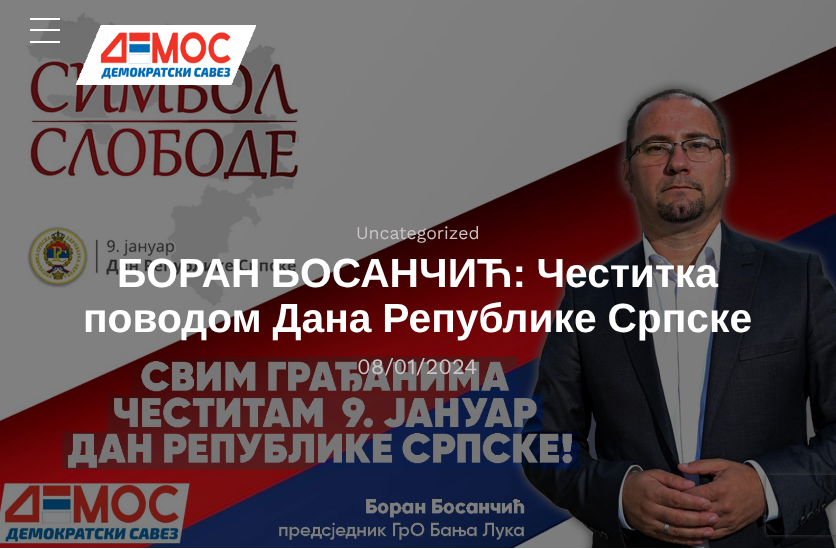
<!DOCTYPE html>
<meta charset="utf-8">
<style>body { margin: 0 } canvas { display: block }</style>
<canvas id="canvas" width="836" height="549"></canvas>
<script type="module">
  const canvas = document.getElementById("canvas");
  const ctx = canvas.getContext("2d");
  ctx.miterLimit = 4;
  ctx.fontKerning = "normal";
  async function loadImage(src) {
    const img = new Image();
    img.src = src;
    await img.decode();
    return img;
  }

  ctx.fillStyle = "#ffffff";
  ctx.fillRect(0, 0, 836, 549);
  ctx.drawImage(await loadImage("img2.png"), 0, 0, 836, 548);
  ctx.fillRect(30, 18, 30, 2);
  ctx.fillRect(30, 29, 30, 2);
  ctx.fillRect(30, 41, 30, 2);
  ctx.drawImage(await loadImage("img1.png"), 76, 25, 180, 60);
  ctx.font = "17.75px Work Sans";
  ctx.fillStyle = "#ccc4c4";
  ctx.fillText("Uncategorized", 356, 239);
  ctx.wordSpacing = "-1px";
  ctx.font = "bold 40.75px Liberation Sans";
  ctx.fillStyle = "#ffffff";
  ctx.fillText("БОРАН БОСАНЧИЋ: Честитка", 117, 287);
  ctx.wordSpacing = "-0.5px";
  ctx.fillText("поводом Дана Републике Српске", 83, 332);
  ctx.wordSpacing = "0px";
  ctx.font = "22px Work Sans";
  ctx.fillStyle = "#ccc4c4";
  ctx.fillText("08/01/2024", 357, 374);
  ctx.save();
  ctx.beginPath();
  ctx.moveTo(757, 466);
  ctx.lineTo(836, 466);
  ctx.lineTo(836, 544);
  ctx.lineTo(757, 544);
  ctx.closePath();
  ctx.moveTo(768, 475);
  ctx.lineTo(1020, 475);
  ctx.bezierCurveTo(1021, 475, 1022, 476, 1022, 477);
  ctx.lineTo(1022, 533);
  ctx.bezierCurveTo(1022, 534, 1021, 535, 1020, 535);
  ctx.lineTo(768, 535);
  ctx.bezierCurveTo(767, 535, 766, 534, 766, 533);
  ctx.lineTo(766, 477);
  ctx.bezierCurveTo(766, 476, 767, 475, 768, 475);
  ctx.closePath();
  ctx.clip("evenodd");
  ctx.fillStyle = "#404040";
  ctx.filter = "blur(2.5px)";
  ctx.beginPath();
  ctx.roundRect(766, 475, 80, 60, 2);
  ctx.fill();
  ctx.filter = "none";
  ctx.restore();
</script>
